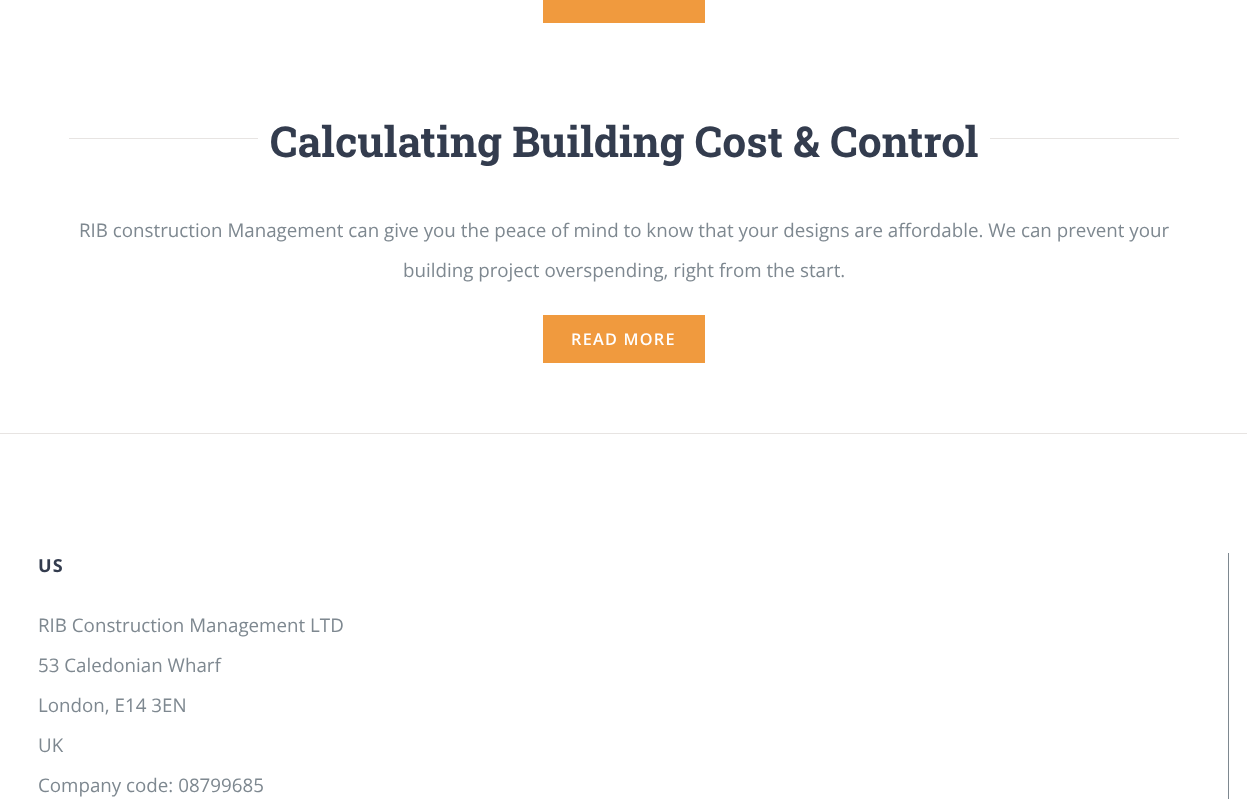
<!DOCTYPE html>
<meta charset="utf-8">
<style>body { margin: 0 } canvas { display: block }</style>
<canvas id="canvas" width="1247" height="799"></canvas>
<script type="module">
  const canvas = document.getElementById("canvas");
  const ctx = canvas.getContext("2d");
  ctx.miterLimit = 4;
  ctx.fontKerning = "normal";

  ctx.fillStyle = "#ffffff";
  ctx.fillRect(0, 0, 1247, 799);
  ctx.fillStyle = "#f09a3e";
  ctx.fillRect(543, 0, 162, 23);
  ctx.fillStyle = "#e7e4e2";
  ctx.fillRect(69, 138, 189, 1);
  ctx.font = "bold 42.5px Roboto Slab";
  ctx.fillStyle = "#333c4e";
  ctx.fillText("Calculating Building Cost & Control", 270, 157);
  ctx.fillStyle = "#e7e4e2";
  ctx.fillRect(990, 138, 189, 1);
  ctx.font = "18.75px Open Sans";
  ctx.fillStyle = "#7e8890";
  ctx.fillText("RIB construction Management can give you the peace of mind to know that your designs are affordable. We can prevent your", 79, 237);
  ctx.fillText("building project overspending, right from the start.", 403, 277);
  ctx.fillStyle = "#f09a3e";
  ctx.fillRect(543, 315, 162, 48);
  ctx.letterSpacing = "1.25px";
  ctx.font = "600 16.25px Open Sans";
  ctx.fillStyle = "#ffffff";
  ctx.fillText("READ MORE", 571, 345);
  ctx.fillStyle = "#e7e4e2";
  ctx.fillRect(0, 433, 1247, 1);
  ctx.fillStyle = "#7e8890";
  ctx.fillRect(1228, 553, 1, 246);
  ctx.font = "bold 18px Open Sans";
  ctx.fillStyle = "#333c4e";
  ctx.fillText("US", 38, 572);
  ctx.letterSpacing = "0px";
  ctx.font = "18.75px Open Sans";
  ctx.fillStyle = "#7e8890";
  ctx.fillText("RIB Construction Management LTD", 38, 632);
  ctx.fillText("53 Caledonian Wharf", 38, 672);
  ctx.fillText("London, E14 3EN", 38, 712);
  ctx.fillText("UK", 38, 752);
  ctx.fillText("Company code: 08799685", 38, 792);
</script>
